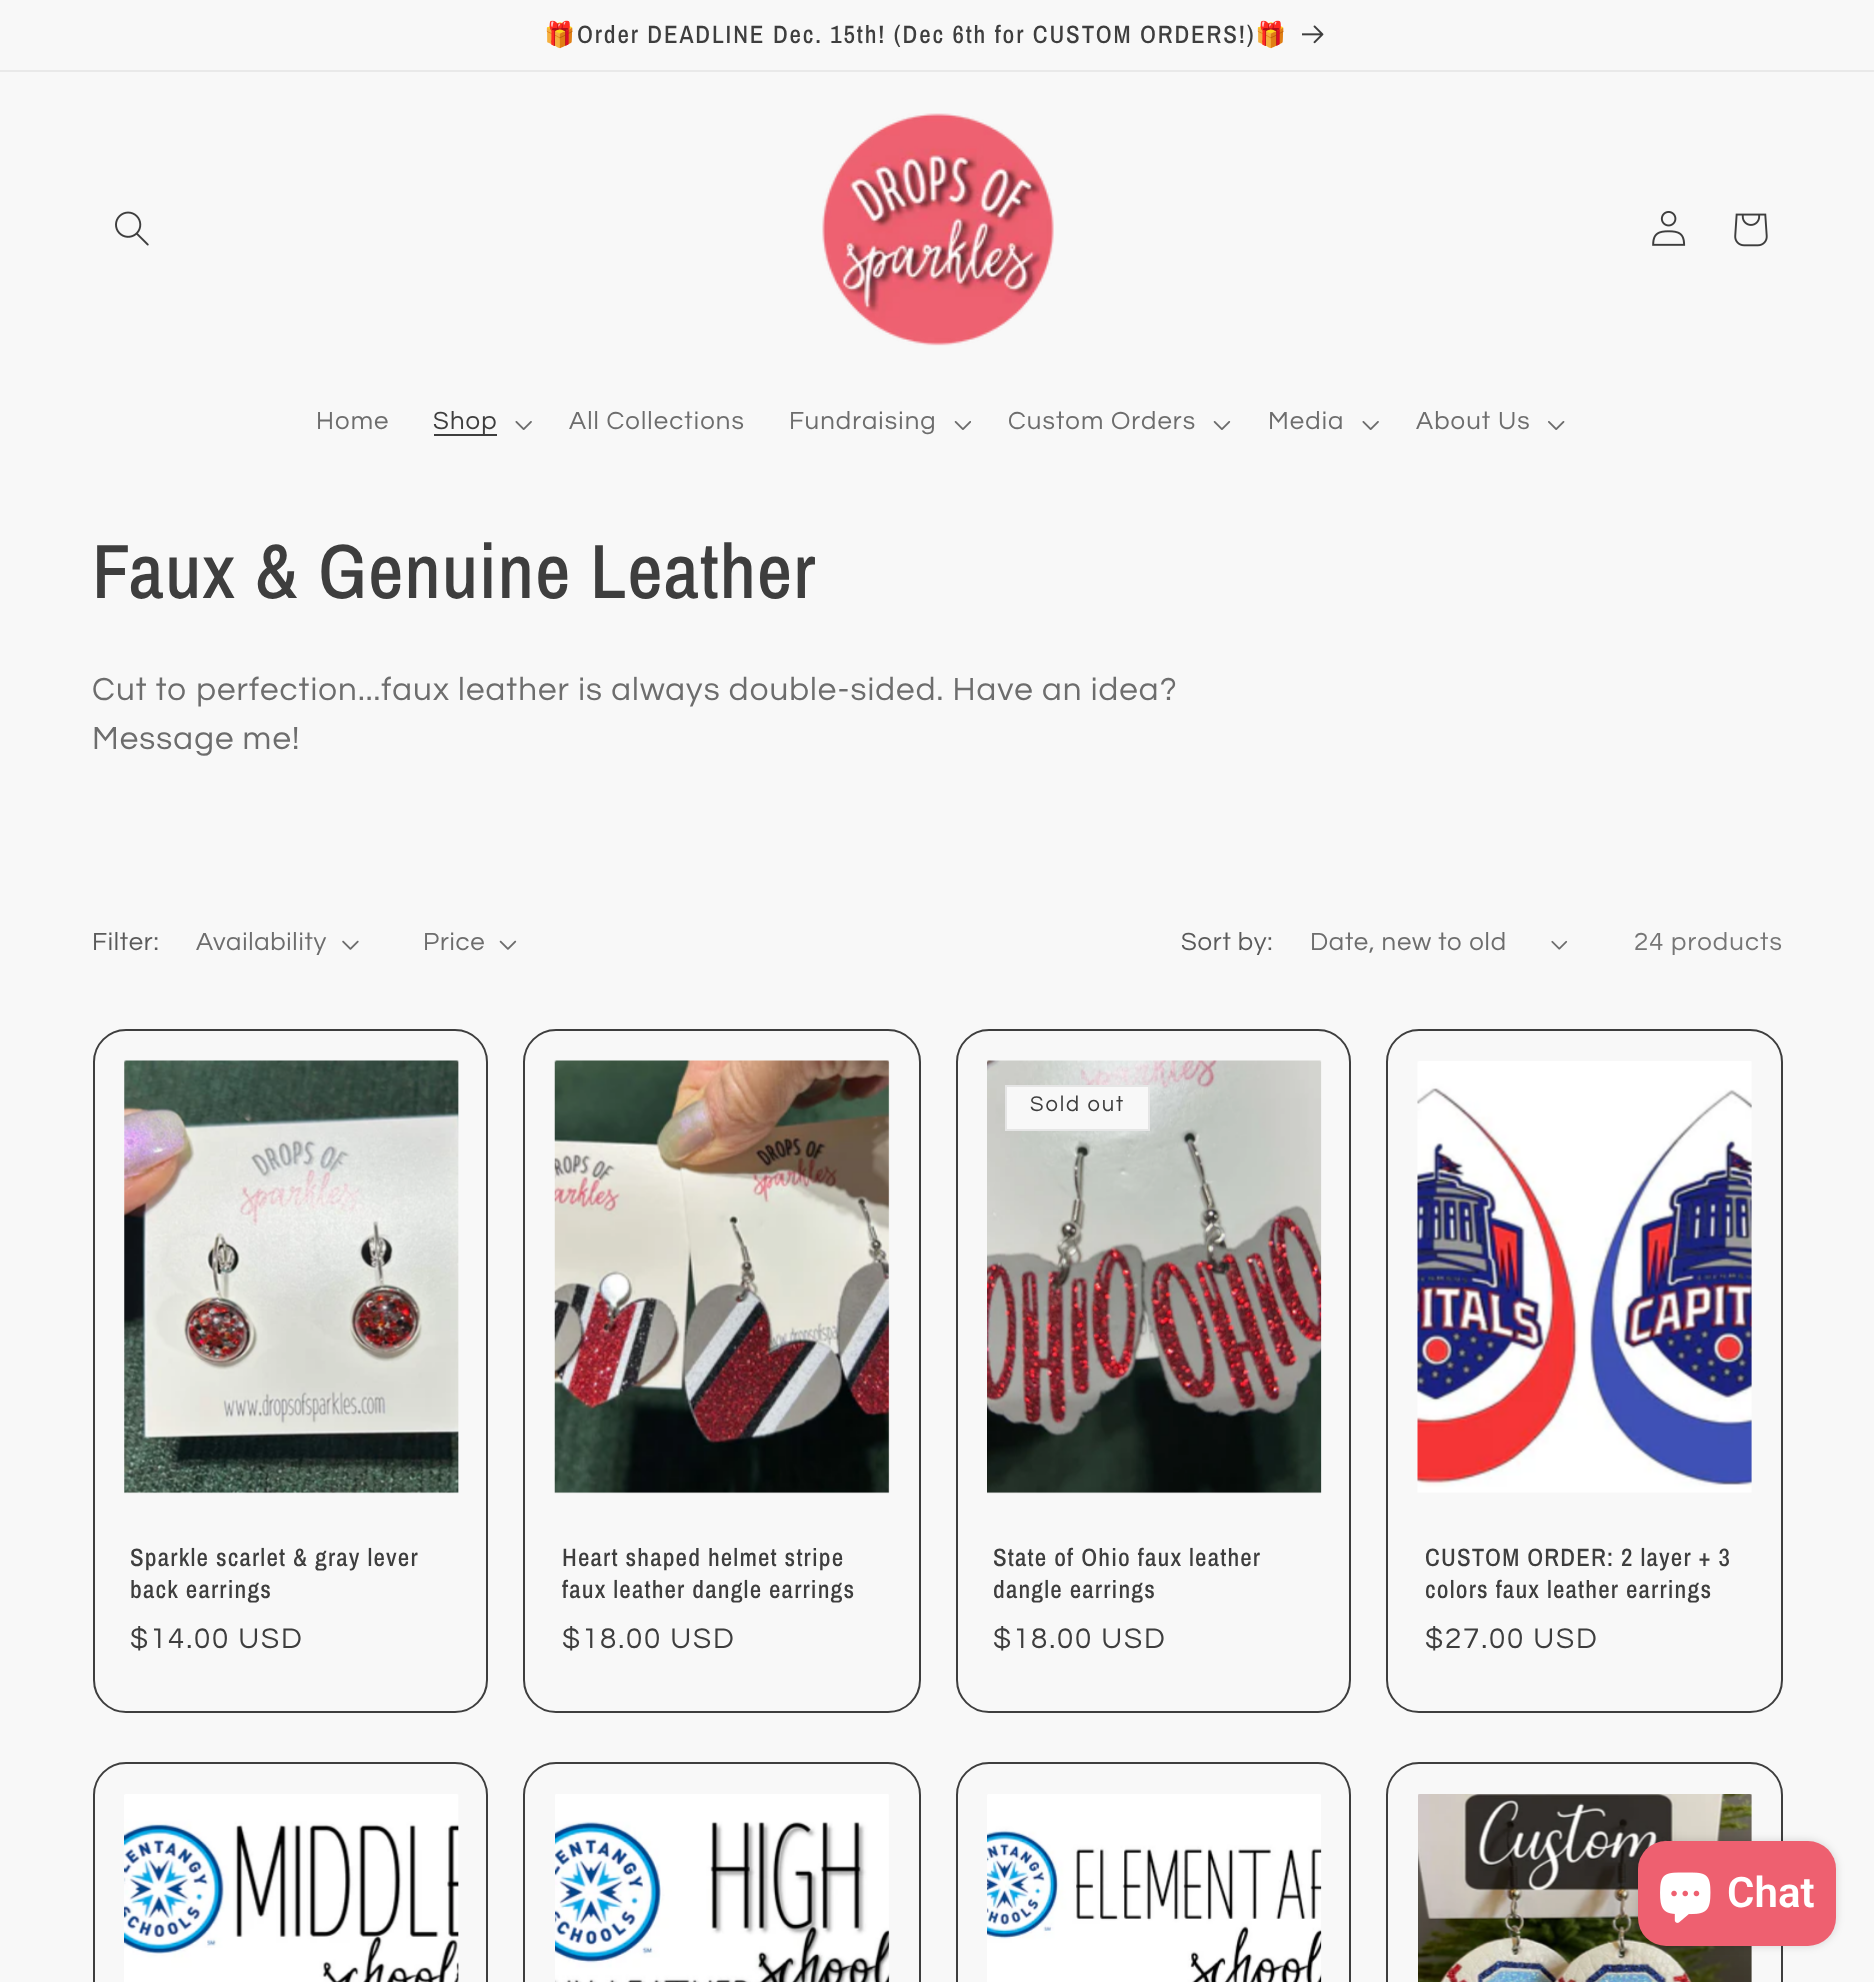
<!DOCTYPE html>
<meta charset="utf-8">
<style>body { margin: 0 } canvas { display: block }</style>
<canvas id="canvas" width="1874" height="1982"></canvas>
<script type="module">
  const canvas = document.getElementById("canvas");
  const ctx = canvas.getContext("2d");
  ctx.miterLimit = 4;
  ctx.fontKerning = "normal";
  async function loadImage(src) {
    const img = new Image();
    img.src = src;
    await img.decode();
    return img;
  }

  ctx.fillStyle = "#f8f8f8";
  ctx.fillRect(0, 0, 1874, 1982);
  ctx.fillStyle = "#e9e9e9";
  ctx.fillRect(0, 70, 1874, 2);
  ctx.letterSpacing = "1.85px";
  ctx.font = "25px Noto Color Emoji";
  ctx.fillStyle = "#3e3e3e";
  ctx.fillText("🎁", 544, 43);
  ctx.font = "500 25px Archivo Narrow";
  ctx.fillText("Order DEADLINE Dec. 15th! (Dec 6th for CUSTOM ORDERS!)", 577, 43);
  ctx.font = "25px Noto Color Emoji";
  ctx.fillText("🎁", 1255, 43);
  ctx.drawImage(await loadImage("img1.png"), 1302, 25, 22, 19);
  ctx.drawImage(await loadImage("img2.png"), 115, 211, 34, 35);
  ctx.drawImage(await loadImage("img3.png"), 822, 113, 232, 233);
  ctx.drawImage(await loadImage("img4.png"), 1652, 211, 34, 35);
  ctx.drawImage(await loadImage("img5.png"), 1734, 213, 34, 34);
  ctx.letterSpacing = "1.1px";
  ctx.font = "25.75px Questrial";
  ctx.fillStyle = "#6d6d6d";
  ctx.fillText("Home", 316, 429);
  ctx.fillStyle = "#3e3e3e";
  ctx.fillRect(434, 434, 63, 2);
  ctx.fillText("Shop", 433, 429);
  ctx.drawImage(await loadImage("img6.png"), 515, 421, 17, 9);
  ctx.fillStyle = "#6d6d6d";
  ctx.fillText("All Collections", 569, 429);
  ctx.fillText("Fundraising", 789, 429);
  ctx.drawImage(await loadImage("img7.png"), 954, 421, 17, 9);
  ctx.fillText("Custom Orders", 1008, 429);
  ctx.drawImage(await loadImage("img8.png"), 1213, 421, 18, 9);
  ctx.fillText("Media", 1268, 429);
  ctx.drawImage(await loadImage("img6.png"), 1362, 421, 17, 9);
  ctx.fillText("About Us", 1416, 429);
  ctx.drawImage(await loadImage("img9.png"), 1548, 421, 17, 9);
  ctx.letterSpacing = "1.15px";
  ctx.font = "500 77px Archivo Narrow";
  ctx.fillStyle = "#3e3e3e";
  ctx.fillText("Faux & Genuine Leather", 92, 598);
  ctx.letterSpacing = "1.1px";
  ctx.font = "33.1px Questrial";
  ctx.fillStyle = "#6d6d6d";
  ctx.fillText("Cut to perfection...faux leather is always double-sided. Have an idea?", 92, 700);
  ctx.fillText("Message me!", 92, 749);
  ctx.letterSpacing = "0.75px";
  ctx.font = "25.75px Questrial";
  ctx.fillStyle = "#5a5a5a";
  ctx.fillText("Filter:", 92, 950);
  ctx.fillStyle = "#6d6d6d";
  ctx.fillText("Availability", 196, 950);
  ctx.drawImage(await loadImage("img10.png"), 342, 940, 17, 10);
  ctx.fillText("Price", 423, 950);
  ctx.drawImage(await loadImage("img11.png"), 499, 940, 18, 10);
  ctx.fillStyle = "#5a5a5a";
  ctx.fillText("Sort by:", 1181, 950);
  ctx.fillStyle = "#6d6d6d";
  ctx.fillText("Date, new to old", 1310, 950);
  ctx.drawImage(await loadImage("img12.png"), 1551, 940, 17, 10);
  ctx.letterSpacing = "1.1px";
  ctx.fillStyle = "#767676";
  ctx.fillText("24 products", 1634, 950);
  ctx.beginPath();
  ctx.roundRect(94, 1030, 393, 682, 32);
  ctx.strokeStyle = "#3e3e3e";
  ctx.lineWidth = 2;
  ctx.stroke();
  ctx.drawImage(await loadImage("img13.png"), 124, 1060, 335, 434);
  ctx.letterSpacing = "1.15px";
  ctx.font = "500 25px Archivo Narrow";
  ctx.fillStyle = "#3e3e3e";
  ctx.fillText("Sparkle scarlet & gray lever", 130, 1566);
  ctx.fillText("back earrings", 130, 1598);
  ctx.letterSpacing = "1.85px";
  ctx.font = "29.5px Questrial";
  ctx.fillText("$14.00 USD", 130, 1648);
  ctx.beginPath();
  ctx.roundRect(524, 1030, 396, 682, 32);
  ctx.stroke();
  ctx.drawImage(await loadImage("img14.png"), 554, 1060, 336, 434);
  ctx.letterSpacing = "1.15px";
  ctx.font = "500 25px Archivo Narrow";
  ctx.fillText("Heart shaped helmet stripe", 562, 1566);
  ctx.fillText("faux leather dangle earrings", 562, 1598);
  ctx.letterSpacing = "1.85px";
  ctx.font = "29.5px Questrial";
  ctx.fillText("$18.00 USD", 562, 1648);
  ctx.beginPath();
  ctx.roundRect(957, 1030, 393, 682, 32);
  ctx.stroke();
  ctx.drawImage(await loadImage("img15.png"), 987, 1060, 335, 434);
  ctx.fillStyle = "#f8f8f8";
  ctx.beginPath();
  ctx.rect(1006, 1086, 143, 44);
  ctx.fill();
  ctx.strokeStyle = "#e5e5e5";
  ctx.stroke();
  ctx.font = "22px Questrial";
  ctx.fillStyle = "#3e3e3e";
  ctx.fillText("Sold out", 1030, 1111);
  ctx.letterSpacing = "1.15px";
  ctx.font = "500 25px Archivo Narrow";
  ctx.fillText("State of Ohio faux leather", 993, 1566);
  ctx.fillText("dangle earrings", 993, 1598);
  ctx.letterSpacing = "1.85px";
  ctx.font = "29.5px Questrial";
  ctx.fillText("$18.00 USD", 993, 1648);
  ctx.beginPath();
  ctx.roundRect(1387, 1030, 395, 682, 32);
  ctx.strokeStyle = "#3e3e3e";
  ctx.stroke();
  ctx.drawImage(await loadImage("img16.png"), 1417, 1061, 335, 432);
  ctx.letterSpacing = "1.15px";
  ctx.font = "500 25px Archivo Narrow";
  ctx.fillText("CUSTOM ORDER: 2 layer + 3", 1425, 1566);
  ctx.fillText("colors faux leather earrings", 1425, 1598);
  ctx.letterSpacing = "1.85px";
  ctx.font = "29.5px Questrial";
  ctx.fillText("$27.00 USD", 1425, 1648);
  ctx.beginPath();
  ctx.roundRect(94, 1763, 393, 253, 32);
  ctx.stroke();
  ctx.drawImage(await loadImage("img17.png"), 124, 1794, 335, 188);
  ctx.beginPath();
  ctx.roundRect(524, 1763, 396, 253, 32);
  ctx.stroke();
  ctx.drawImage(await loadImage("img18.png"), 555, 1794, 335, 188);
  ctx.beginPath();
  ctx.roundRect(957, 1763, 393, 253, 32);
  ctx.stroke();
  ctx.drawImage(await loadImage("img19.png"), 987, 1794, 335, 188);
  ctx.beginPath();
  ctx.roundRect(1387, 1763, 395, 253, 32);
  ctx.stroke();
  ctx.drawImage(await loadImage("img20.png"), 1418, 1794, 334, 188);
  ctx.fillStyle = "rgba(0, 0, 0, 0.15)";
  ctx.filter = "blur(4.5px)";
  ctx.beginPath();
  ctx.roundRect(1638, 1841, 198, 105, 28);
  ctx.fill();
  ctx.filter = "none";
  ctx.fillStyle = "#ee6070";
  ctx.beginPath();
  ctx.roundRect(1638, 1841, 198, 105, 28);
  ctx.fill();
  ctx.drawImage(await loadImage("img21.png"), 1660, 1872, 51, 51);
  ctx.letterSpacing = "0px";
  ctx.font = "600 42px Roboto";
  ctx.fillStyle = "#ffffff";
  ctx.fillText("Chat", 1727, 1907);
</script>
